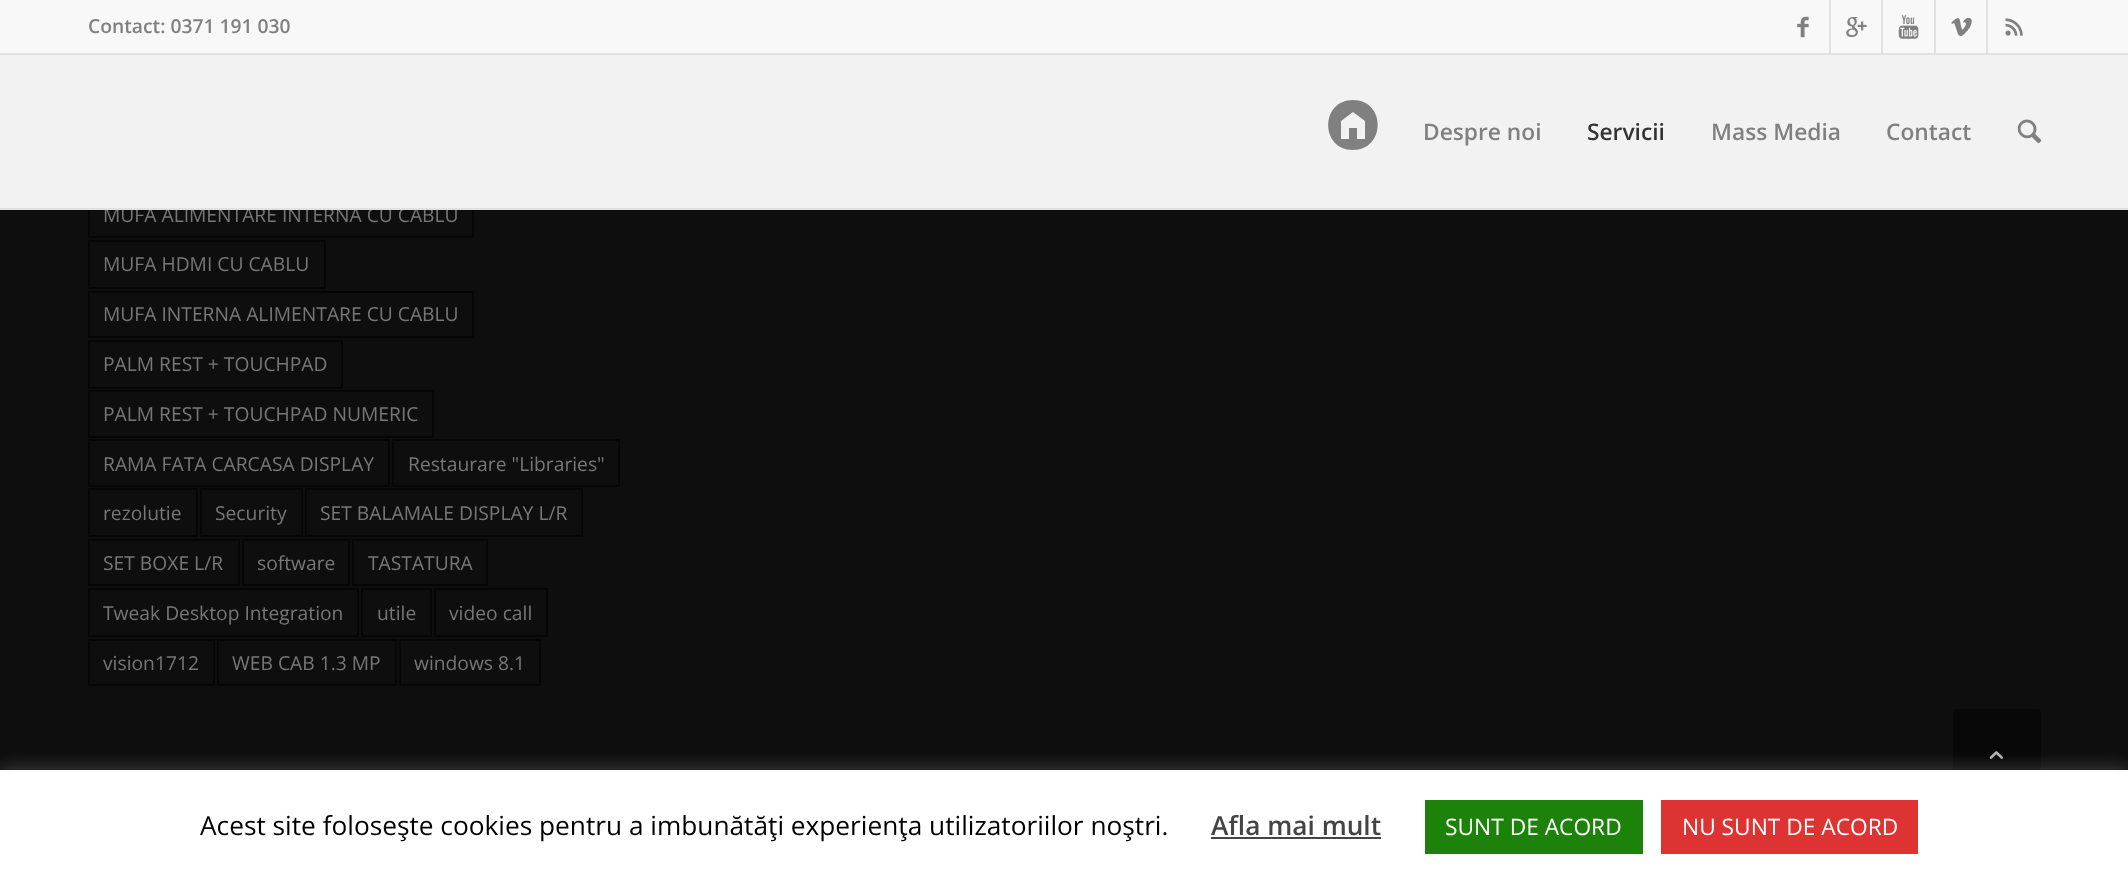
<!DOCTYPE html>
<meta charset="utf-8">
<style>body { margin: 0 } canvas { display: block }</style>
<canvas id="canvas" width="2128" height="883"></canvas>
<script type="module">
  const canvas = document.getElementById("canvas");
  const ctx = canvas.getContext("2d");
  ctx.miterLimit = 4;
  ctx.fontKerning = "normal";
  async function loadImage(src) {
    const img = new Image();
    img.src = src;
    await img.decode();
    return img;
  }

  ctx.fillStyle = "#0e0e0e";
  ctx.fillRect(0, 0, 2128, 883);
  ctx.strokeStyle = "#060606";
  ctx.lineWidth = 2;
  ctx.strokeRect(89, 41, 89, 47);
  ctx.strokeRect(181, 41, 270, 47);
  ctx.strokeRect(454, 41, 42, 47);
  ctx.strokeRect(500, 41, 80, 47);
  ctx.fillStyle = "#f8f8f8";
  ctx.fillRect(0, 0, 2128, 53);
  ctx.fillStyle = "#e1e1e1";
  ctx.fillRect(0, 53, 2128, 2);
  ctx.font = "600 19.25px Open Sans";
  ctx.fillStyle = "#808080";
  ctx.fillText("Contact: 0371 191 030", 88, 33);
  ctx.fillStyle = "#e1e1e1";
  ctx.fillRect(1829, 0, 2, 53);
  ctx.drawImage(await loadImage("img1.png"), 1797, 16, 12, 22);
  ctx.fillRect(1881, 0, 2, 53);
  ctx.drawImage(await loadImage("img2.png"), 1846, 17, 21, 20);
  ctx.fillRect(1934, 0, 2, 53);
  ctx.drawImage(await loadImage("img3.png"), 1898, 15, 21, 24);
  ctx.fillRect(1986, 0, 2, 53);
  ctx.drawImage(await loadImage("img4.png"), 1951, 17, 21, 20);
  ctx.drawImage(await loadImage("img5.png"), 2005, 18, 18, 18);
  ctx.strokeRect(89, 92, 87, 45);
  ctx.strokeRect(180, 92, 164, 45);
  ctx.strokeRect(89, 141, 321, 47);
  ctx.strokeRect(414, 141, 122, 47);
  ctx.strokeRect(89, 192, 384, 45);
  ctx.fillStyle = "rgba(255, 255, 255, 0.95)";
  ctx.fillRect(0, 55, 2128, 153);
  ctx.font = "19.25px Open Sans";
  ctx.fillStyle = "#777777";
  ctx.fillText("MUFA ALIMENTARE INTERNA CU CABLU", 103, 222);
  ctx.fillStyle = "#e1e1e1";
  ctx.fillRect(0, 208, 2128, 2);
  ctx.fillStyle = "#808080";
  ctx.beginPath();
  ctx.moveTo(1353, 100);
  ctx.bezierCurveTo(1320, 100, 1320, 150, 1353, 150);
  ctx.bezierCurveTo(1386, 150, 1386, 100, 1353, 100);
  ctx.closePath();
  ctx.moveTo(1353, 112);
  ctx.lineTo(1365, 121);
  ctx.lineTo(1365, 139);
  ctx.lineTo(1357, 139);
  ctx.lineTo(1357, 128);
  ctx.lineTo(1349, 128);
  ctx.lineTo(1349, 139);
  ctx.lineTo(1341, 139);
  ctx.lineTo(1341, 121);
  ctx.closePath();
  ctx.fill();
  ctx.font = "600 22.75px Open Sans";
  ctx.fillText("Despre noi", 1423, 140);
  ctx.fillStyle = "#333333";
  ctx.fillText("Servicii", 1587, 140);
  ctx.fillStyle = "#808080";
  ctx.fillText("Mass Media", 1711, 140);
  ctx.fillText("Contact", 1886, 140);
  ctx.drawImage(await loadImage("img6.png"), 2017, 119, 25, 25);
  ctx.strokeRect(89, 241, 236, 47);
  ctx.font = "19.25px Open Sans";
  ctx.fillStyle = "#777777";
  ctx.fillText("MUFA HDMI CU CABLU", 103, 271);
  ctx.strokeRect(89, 292, 384, 45);
  ctx.fillText("MUFA INTERNA ALIMENTARE CU CABLU", 103, 321);
  ctx.strokeRect(89, 341, 253, 47);
  ctx.fillText("PALM REST + TOUCHPAD", 103, 371);
  ctx.strokeRect(89, 391, 344, 46);
  ctx.fillText("PALM REST + TOUCHPAD NUMERIC", 103, 421);
  ctx.strokeRect(89, 440, 300, 46);
  ctx.fillText("RAMA FATA CARCASA DISPLAY", 103, 471);
  ctx.strokeRect(393, 440, 226, 46);
  ctx.fillText("Restaurare \"Libraries\"", 408, 471);
  ctx.strokeRect(89, 489, 108, 47);
  ctx.fillText("rezolutie", 103, 520);
  ctx.strokeRect(201, 489, 101, 47);
  ctx.fillText("Security", 215, 520);
  ctx.strokeRect(306, 489, 276, 47);
  ctx.fillText("SET BALAMALE DISPLAY L/R", 320, 520);
  ctx.strokeRect(89, 540, 150, 45);
  ctx.fillText("SET BOXE L/R", 103, 570);
  ctx.strokeRect(243, 540, 106, 45);
  ctx.fillText("software", 257, 570);
  ctx.strokeRect(353, 540, 134, 45);
  ctx.fillText("TASTATURA", 368, 570);
  ctx.strokeRect(89, 589, 269, 47);
  ctx.fillText("Tweak Desktop Integration", 103, 620);
  ctx.strokeRect(362, 589, 69, 47);
  ctx.fillText("utile", 377, 620);
  ctx.strokeRect(435, 589, 112, 47);
  ctx.fillText("video call", 449, 620);
  ctx.strokeRect(89, 640, 125, 45);
  ctx.fillText("vision1712", 103, 670);
  ctx.strokeRect(218, 640, 178, 45);
  ctx.fillText("WEB CAB 1.3 MP", 232, 670);
  ctx.strokeRect(400, 640, 140, 45);
  ctx.fillText("windows 8.1", 414, 670);
  ctx.fillStyle = "rgba(6, 6, 6, 0.7)";
  ctx.beginPath();
  ctx.roundRect(1953, 709, 88, 87, 4);
  ctx.fill();
  ctx.drawImage(await loadImage("img7.png"), 1989, 751, 14, 8);
  ctx.fillStyle = "rgba(172, 171, 171, 0.3)";
  ctx.filter = "blur(9px)";
  ctx.beginPath();
  ctx.rect(0, 768, 2128, 114);
  ctx.fill();
  ctx.filter = "none";
  ctx.fillStyle = "#ffffff";
  ctx.fillRect(0, 770, 2128, 113);
  ctx.font = "26.25px Open Sans";
  ctx.fillStyle = "#000000";
  ctx.fillText("Acest site foloseşte cookies pentru a imbunătăţi experienţa utilizatoriilor noştri.", 200, 835);
  ctx.font = "600 26.25px Open Sans";
  ctx.fillStyle = "#444444";
  ctx.fillText("Afla mai mult", 1211, 835);
  ctx.fillRect(1211, 837, 170, 2);
  ctx.fillStyle = "#1c820a";
  ctx.fillRect(1425, 800, 218, 54);
  ctx.font = "22.75px Open Sans";
  ctx.fillStyle = "#ffffff";
  ctx.fillText("SUNT DE ACORD", 1445, 835);
  ctx.fillStyle = "#dd3333";
  ctx.fillRect(1661, 800, 257, 54);
  ctx.fillStyle = "#ffffff";
  ctx.fillText("NU SUNT DE ACORD", 1682, 835);
</script>
